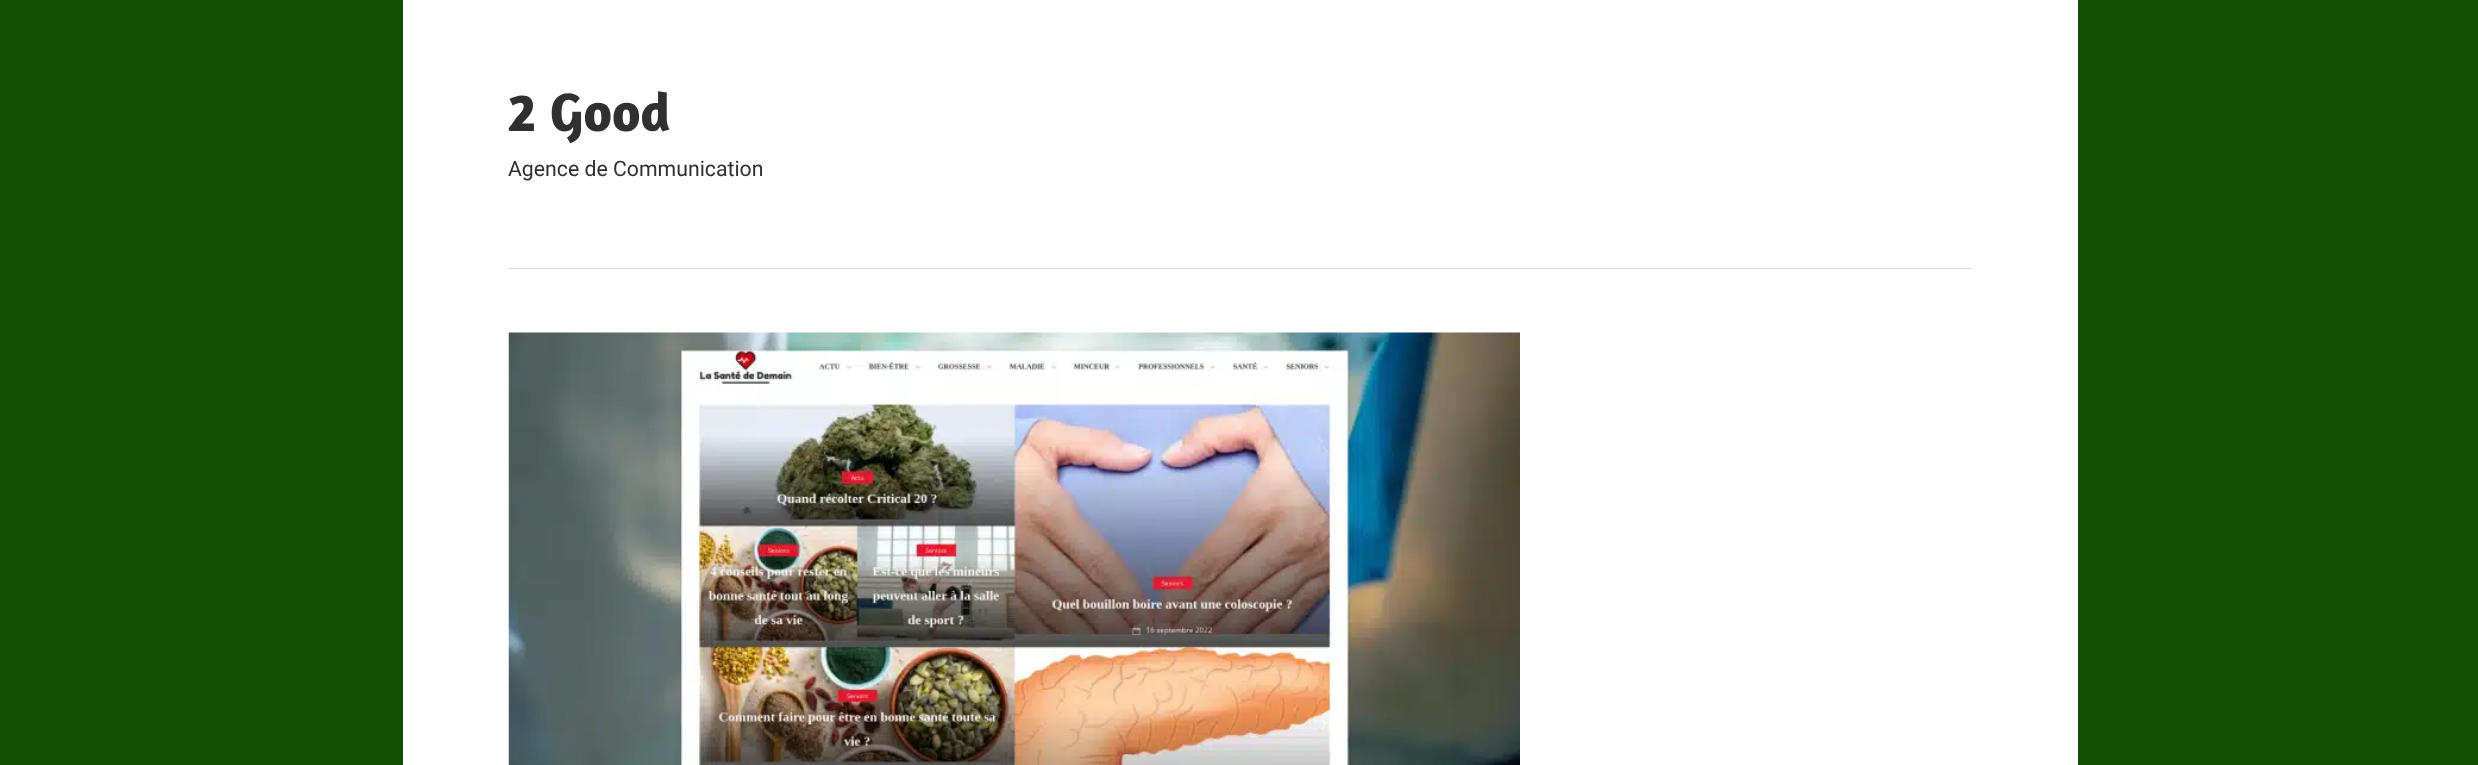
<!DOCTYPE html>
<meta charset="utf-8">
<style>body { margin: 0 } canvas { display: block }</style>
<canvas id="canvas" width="2478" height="765"></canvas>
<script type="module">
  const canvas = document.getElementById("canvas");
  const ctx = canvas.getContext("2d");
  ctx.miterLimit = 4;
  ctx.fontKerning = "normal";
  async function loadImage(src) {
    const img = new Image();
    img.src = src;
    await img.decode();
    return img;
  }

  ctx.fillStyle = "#135005";
  ctx.fillRect(0, 0, 2478, 765);
  ctx.fillStyle = "#ffffff";
  ctx.fillRect(403, 0, 1675, 765);
  ctx.font = "bold 55px Amaranth";
  ctx.fillStyle = "#303030";
  ctx.fillText("2 Good", 508, 131);
  ctx.font = "21.25px Roboto";
  ctx.fillText("Agence de Communication", 508, 176);
  ctx.fillStyle = "#d9d9d9";
  ctx.fillRect(509, 268, 1462, 1);
  ctx.drawImage(await loadImage("img1.png"), 508, 332, 1012, 433);
</script>
